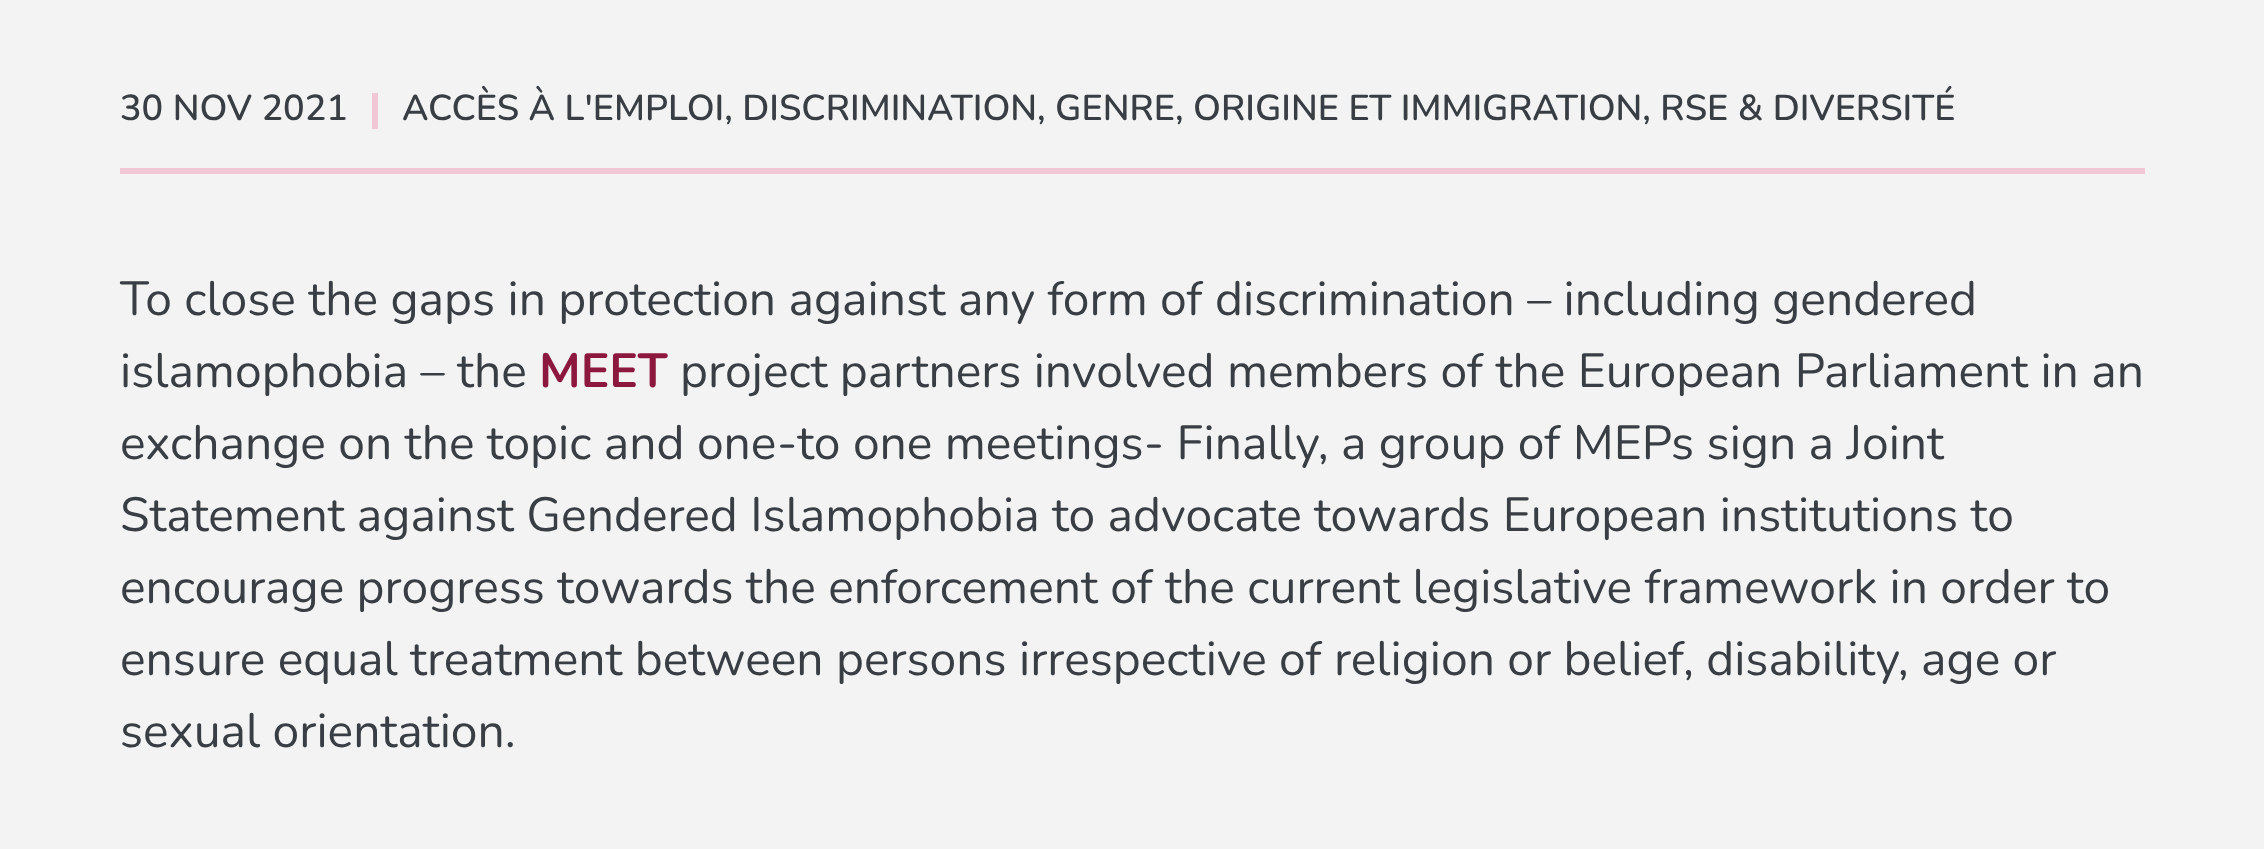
<!DOCTYPE html>
<meta charset="utf-8">
<style>body { margin: 0 } canvas { display: block }</style>
<canvas id="canvas" width="2264" height="849"></canvas>
<script type="module">
  const canvas = document.getElementById("canvas");
  const ctx = canvas.getContext("2d");
  ctx.miterLimit = 4;
  ctx.fontKerning = "normal";

  ctx.fillStyle = "#f3f3f3";
  ctx.fillRect(0, 0, 2264, 849);
  ctx.font = "600 36px Nunito";
  ctx.fillStyle = "#393e44";
  ctx.fillText("30 NOV 2021", 120, 120);
  ctx.fillStyle = "#f0c8d5";
  ctx.fillRect(372, 93, 6, 36);
  ctx.fillStyle = "#393e44";
  ctx.fillText("ACCÈS À L'EMPLOI, DISCRIMINATION, GENRE", 402, 120);
  ctx.fillText(", ORIGINE ET IMMIGRATION, RSE & DIVERSITÉ", 1175, 120);
  ctx.fillStyle = "#f0c8d5";
  ctx.fillRect(120, 168, 2025, 6);
  ctx.font = "48px Nunito";
  ctx.fillStyle = "#393e44";
  ctx.fillText("To close the gaps in protection against any form of discrimination – including gendered", 120, 315);
  ctx.fillText("islamophobia – the", 120, 387);
  ctx.font = "bold 48px Nunito";
  ctx.fillStyle = "#8d183d";
  ctx.fillText("MEET", 539, 387);
  ctx.font = "48px Nunito";
  ctx.fillStyle = "#393e44";
  ctx.fillText("project partners involved members of the European Parliament in an", 680, 387);
  ctx.fillText("exchange on the topic and one-to one meetings- Finally, a group of MEPs sign a Joint", 120, 459);
  ctx.fillText("Statement against Gendered Islamophobia to advocate towards European institutions to", 120, 531);
  ctx.fillText("encourage progress towards the enforcement of the current legislative framework in order to", 120, 603);
  ctx.fillText("ensure equal treatment between persons irrespective of religion or belief, disability, age or", 120, 675);
  ctx.fillText("sexual orientation.", 120, 747);
</script>
